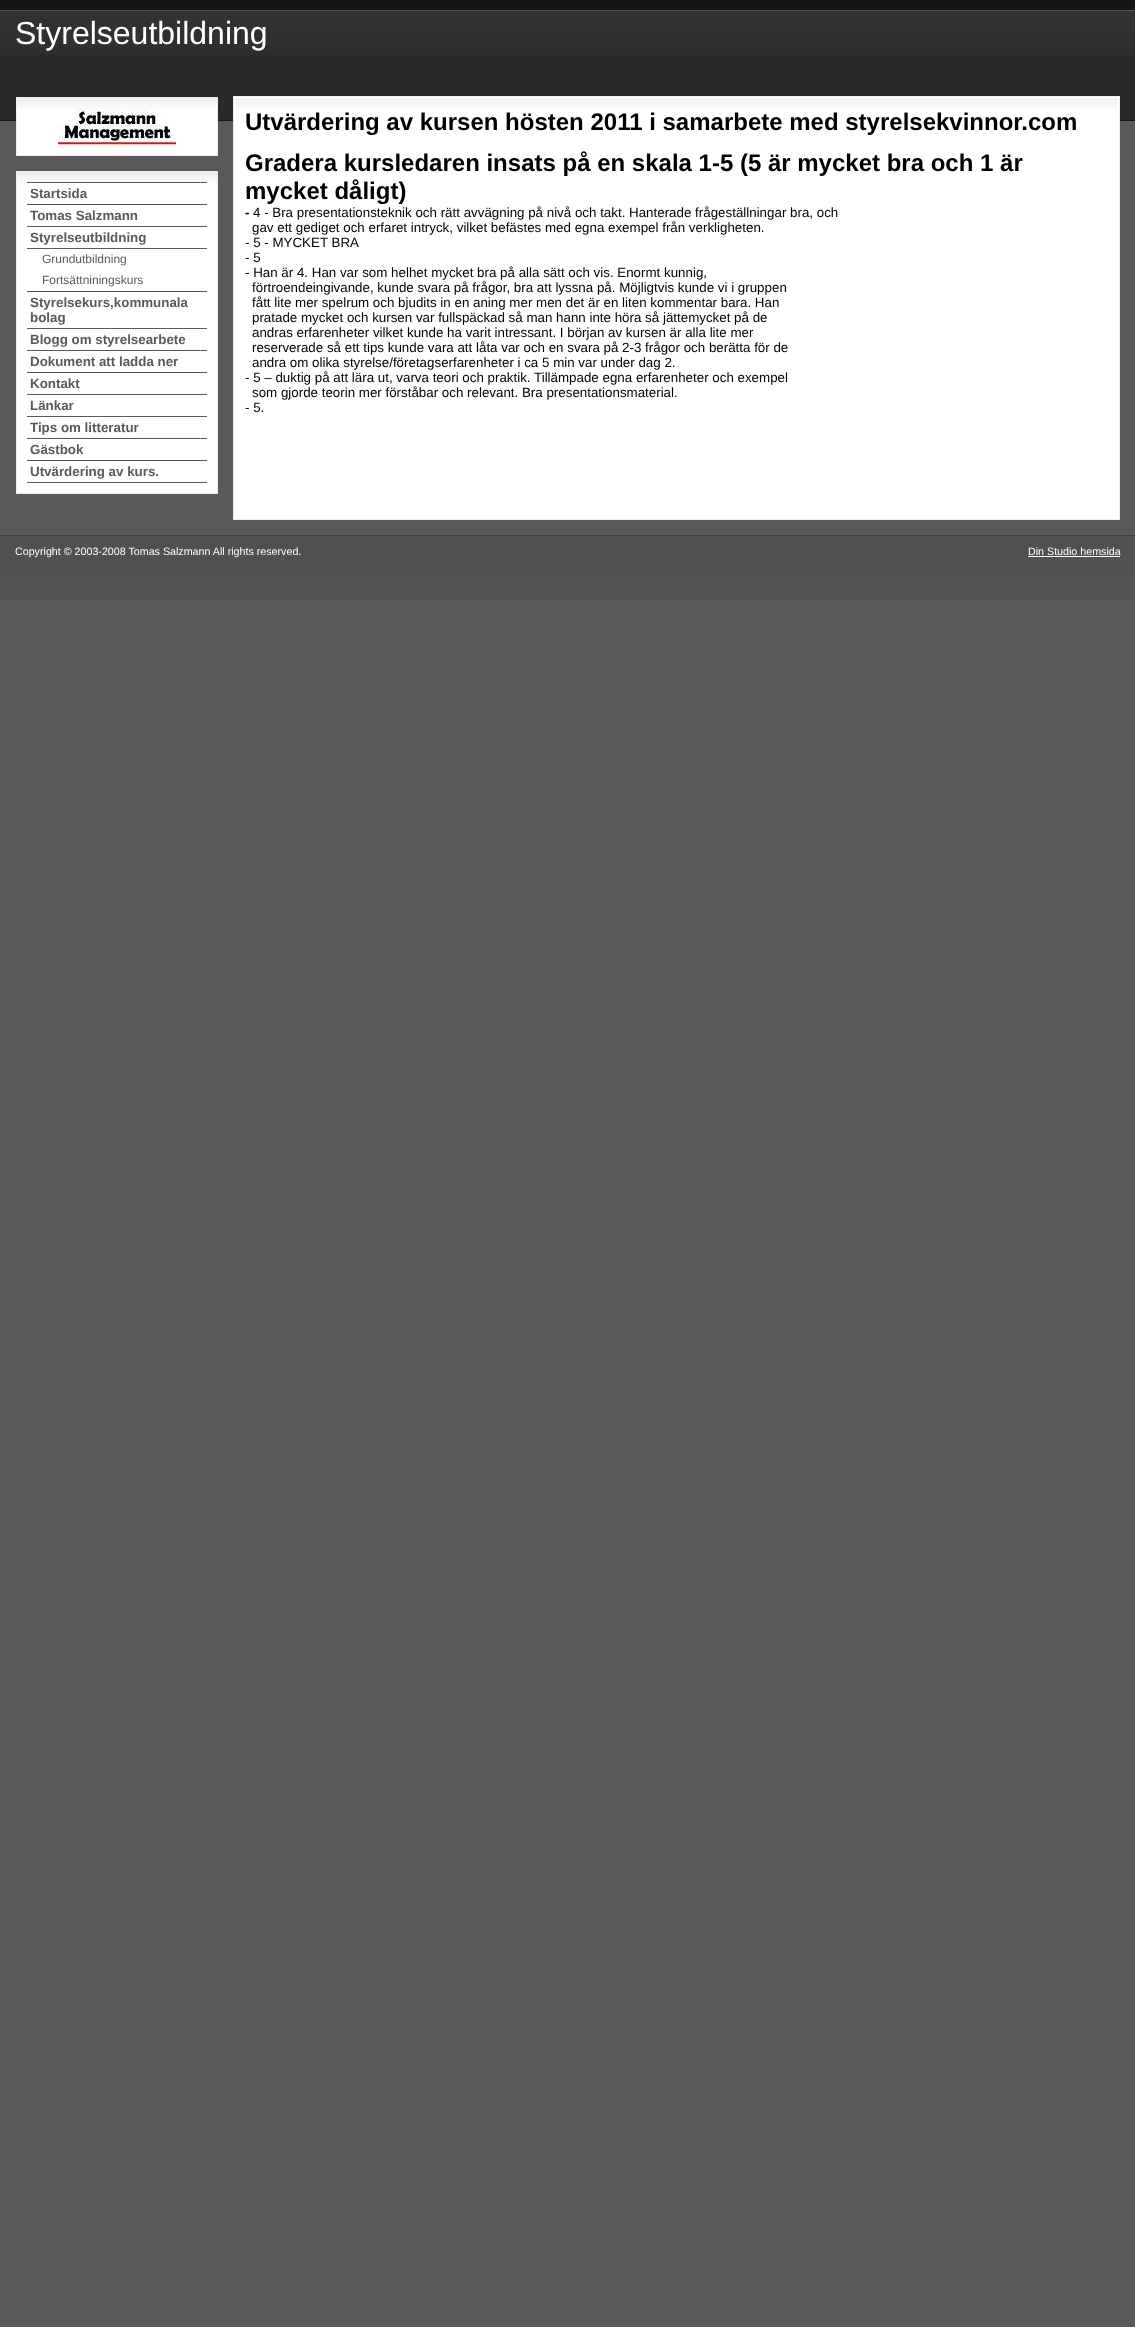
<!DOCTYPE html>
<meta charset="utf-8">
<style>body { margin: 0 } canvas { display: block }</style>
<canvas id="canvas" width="1135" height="2327"></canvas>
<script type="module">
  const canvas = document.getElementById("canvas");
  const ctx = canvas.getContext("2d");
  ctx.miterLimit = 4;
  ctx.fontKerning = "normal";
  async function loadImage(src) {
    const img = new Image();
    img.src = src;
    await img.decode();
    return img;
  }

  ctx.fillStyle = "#595959";
  ctx.fillRect(0, 0, 1135, 2327);
  ctx.fillStyle = "#292929";
  ctx.fillRect(0, 55, 1135, 65);
  ctx.drawImage(await loadImage("img1.png"), 0, 0, 1135, 55);
  ctx.fillStyle = "#171717";
  ctx.fillRect(0, 120, 1135, 1);
  ctx.font = "32px Liberation Sans";
  ctx.fillStyle = "#ffffff";
  ctx.fillText("Styrelseutbildning", 15, 44);
  ctx.fillRect(17, 109, 200, 46);
  ctx.drawImage(await loadImage("img2.png"), 17, 98, 200, 11);
  ctx.strokeStyle = "#ededed";
  ctx.strokeRect(16.5, 97.5, 201, 58);
  ctx.drawImage(await loadImage("img3.png"), 58, 108, 118, 37);
  ctx.fillRect(17, 183, 200, 310);
  ctx.drawImage(await loadImage("img2.png"), 17, 172, 200, 11);
  ctx.strokeRect(16.5, 171.5, 201, 322);
  ctx.fillStyle = "#595959";
  ctx.fillRect(27, 482, 180, 1);
  ctx.fillRect(27, 182, 180, 1);
  ctx.font = "bold 13.35px Liberation Sans";
  ctx.fillText("Startsida", 30, 198);
  ctx.fillRect(27, 204, 180, 1);
  ctx.fillText("Tomas Salzmann", 30, 220);
  ctx.fillRect(27, 226, 180, 1);
  ctx.fillText("Styrelseutbildning", 30, 242);
  ctx.fillRect(27, 248, 180, 1);
  ctx.font = "12px Liberation Sans";
  ctx.fillText("Grundutbildning", 42, 263);
  ctx.fillText("Fortsättniningskurs", 42, 284);
  ctx.fillRect(27, 291, 180, 1);
  ctx.font = "bold 13.35px Liberation Sans";
  ctx.fillText("Styrelsekurs,kommunala", 30, 307);
  ctx.fillText("bolag", 30, 322);
  ctx.fillRect(27, 328, 180, 1);
  ctx.fillText("Blogg om styrelsearbete", 30, 344);
  ctx.fillRect(27, 350, 180, 1);
  ctx.fillText("Dokument att ladda ner", 30, 366);
  ctx.fillRect(27, 372, 180, 1);
  ctx.fillText("Kontakt", 30, 388);
  ctx.fillRect(27, 394, 180, 1);
  ctx.fillText("Länkar", 30, 410);
  ctx.fillRect(27, 416, 180, 1);
  ctx.fillText("Tips om litteratur", 30, 432);
  ctx.fillRect(27, 438, 180, 1);
  ctx.fillText("Gästbok", 30, 454);
  ctx.fillRect(27, 460, 180, 1);
  ctx.fillText("Utvärdering av kurs.", 30, 476);
  ctx.fillStyle = "#ffffff";
  ctx.fillRect(234, 97, 885, 422);
  ctx.fillStyle = "#ededed";
  ctx.fillRect(233, 96, 887, 1);
  ctx.fillRect(1119, 96, 1, 424);
  ctx.fillRect(233, 519, 887, 1);
  ctx.fillRect(233, 96, 1, 424);
  ctx.drawImage(await loadImage("img4.png"), 235, 98, 883, 11);
  ctx.font = "bold 24px Liberation Sans";
  ctx.fillStyle = "#000000";
  ctx.fillText("Utvärdering av kursen hösten 2011 i samarbete med styrelsekvinnor.com", 245, 130);
  ctx.fillText("Gradera kursledaren insats på en skala 1-5 (5 är mycket bra och 1 är", 245, 171);
  ctx.fillText("mycket dåligt)", 245, 199);
  ctx.font = "bold 13.35px Liberation Sans";
  ctx.fillText("-", 245, 217);
  ctx.font = "13.35px Liberation Sans";
  ctx.fillText("4 - Bra presentationsteknik och rätt avvägning på nivå och takt. Hanterade frågeställningar bra, och", 253, 217);
  ctx.fillText("gav ett gediget och erfaret intryck, vilket befästes med egna exempel från verkligheten.", 252, 232);
  ctx.fillText("- 5 - MYCKET BRA", 245, 247);
  ctx.fillText("- 5", 245, 262);
  ctx.fillText("- Han är 4. Han var som helhet mycket bra på alla sätt och vis. Enormt kunnig,", 245, 277);
  ctx.fillText("förtroendeingivande, kunde svara på frågor, bra att lyssna på. Möjligtvis kunde vi i gruppen", 252, 292);
  ctx.fillText("fått lite mer spelrum och bjudits in en aning mer men det är en liten kommentar bara. Han", 252, 307);
  ctx.fillText("pratade mycket och kursen var fullspäckad så man hann inte höra så jättemycket på de", 252, 322);
  ctx.fillText("andras erfarenheter vilket kunde ha varit intressant. I början av kursen är alla lite mer", 252, 337);
  ctx.fillText("reserverade så ett tips kunde vara att låta var och en svara på 2-3 frågor och berätta för de", 252, 352);
  ctx.fillText("andra om olika styrelse/företagserfarenheter i ca 5 min var under dag 2.", 252, 367);
  ctx.fillText("- 5 – duktig på att lära ut, varva teori och praktik. Tillämpade egna erfarenheter och exempel", 245, 382);
  ctx.fillText("som gjorde teorin mer förståbar och relevant. Bra presentationsmaterial.", 252, 397);
  ctx.fillText("- 5.", 245, 412);
  ctx.drawImage(await loadImage("img5.png"), 0, 535, 1135, 65);
  ctx.font = "10.7px Liberation Sans";
  ctx.fillStyle = "#ffffff";
  ctx.fillText("Copyright © 2003-2008 Tomas Salzmann All rights reserved.", 15, 555);
  ctx.fillText("Din Studio hemsida", 1028, 555);
  ctx.fillRect(1028, 556, 92, 1);
</script>
